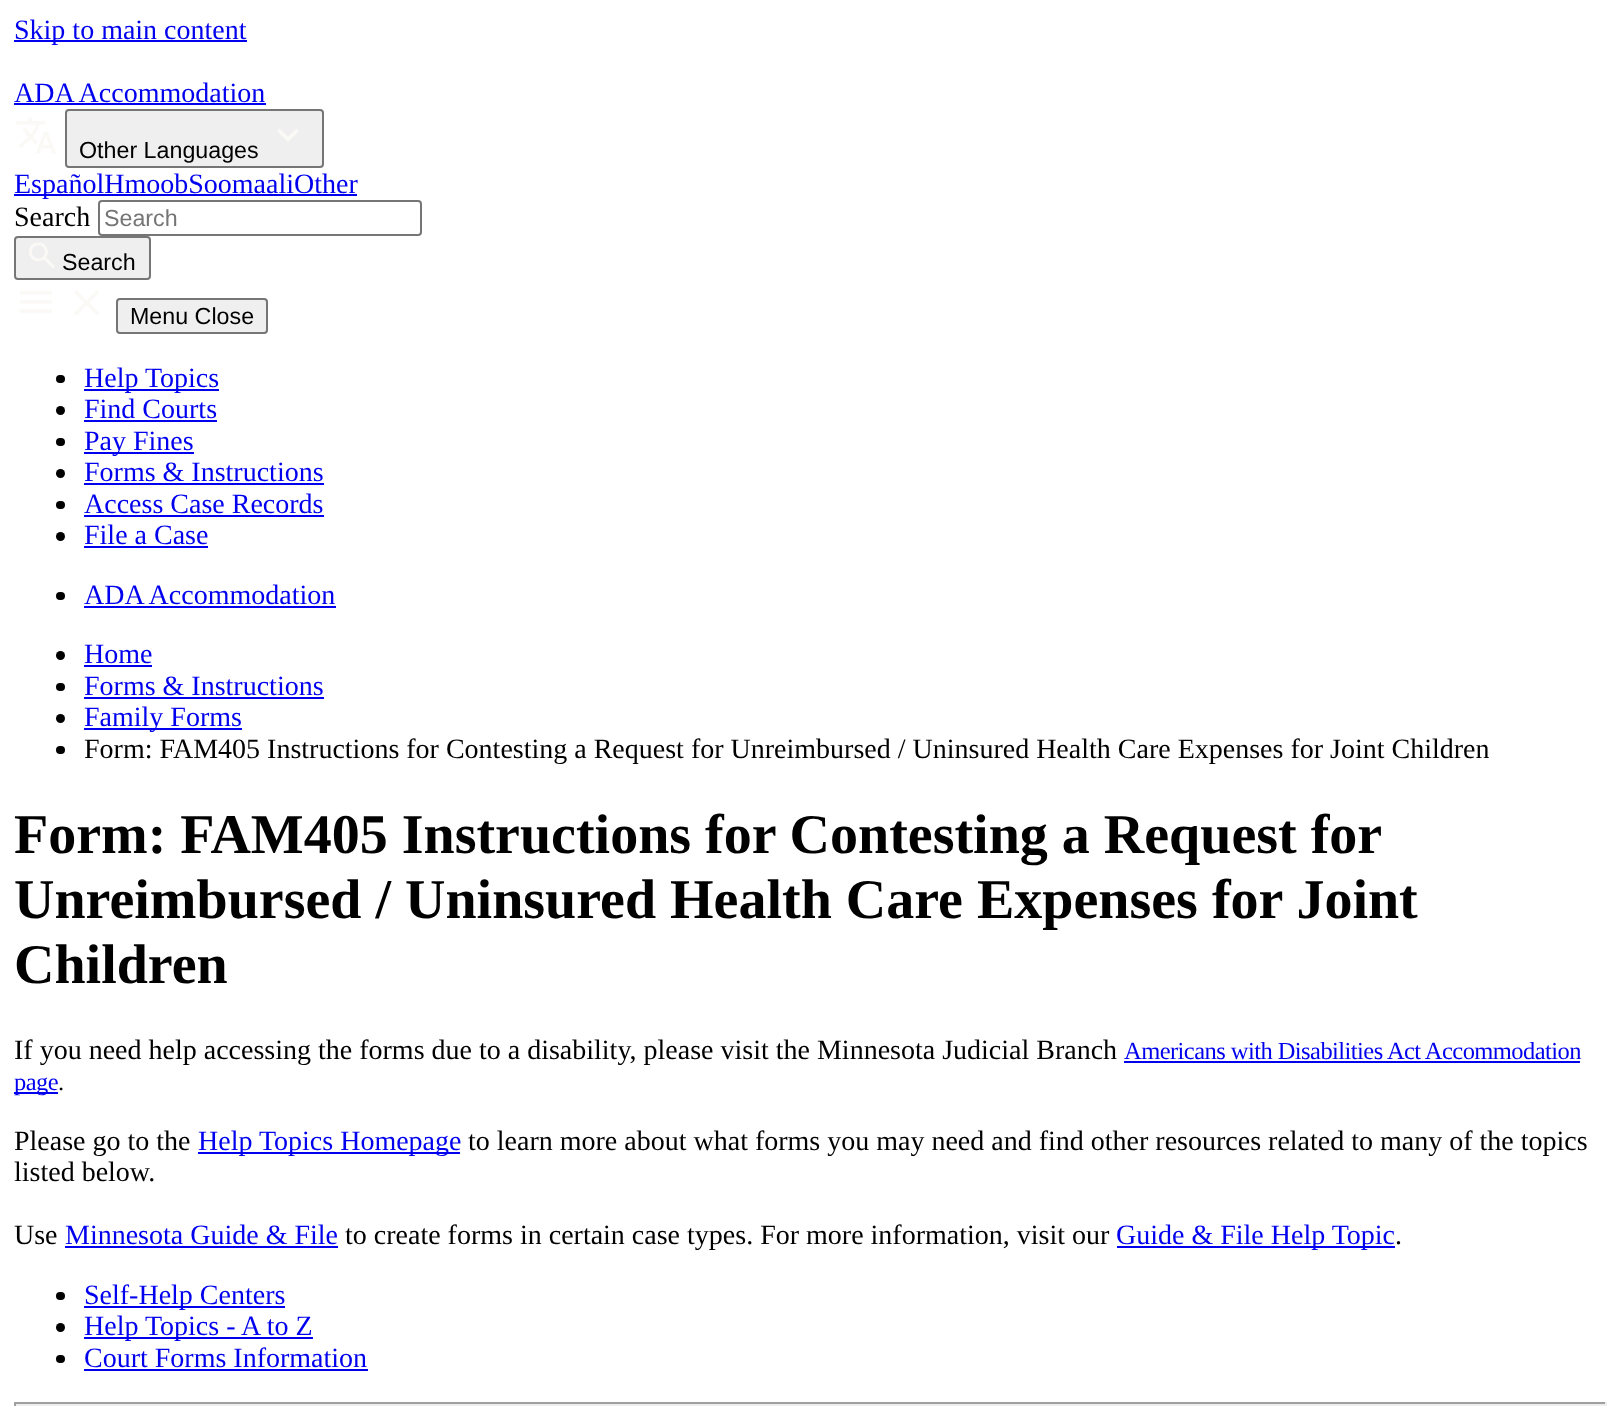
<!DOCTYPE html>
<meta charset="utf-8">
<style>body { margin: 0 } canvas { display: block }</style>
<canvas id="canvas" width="1620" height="1411"></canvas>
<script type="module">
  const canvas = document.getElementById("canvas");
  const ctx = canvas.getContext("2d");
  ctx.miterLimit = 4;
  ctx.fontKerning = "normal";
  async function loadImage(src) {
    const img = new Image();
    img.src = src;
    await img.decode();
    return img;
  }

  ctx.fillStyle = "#ffffff";
  ctx.fillRect(0, 0, 1620, 1411);
  ctx.fillStyle = "#0000ee";
  ctx.fillRect(14, 40, 233, 2);
  ctx.font = "28px Liberation Serif";
  ctx.fillText("Skip to main content", 14, 39);
  ctx.fillText("ADA Accommodation", 14, 102);
  ctx.fillRect(14, 103, 252, 2);
  ctx.drawImage(await loadImage("img1.png"), 16, 117, 40, 37);
  ctx.fillStyle = "#efefef";
  ctx.beginPath();
  ctx.roundRect(66, 110, 257, 57, 3);
  ctx.fill();
  ctx.strokeStyle = "#767676";
  ctx.lineWidth = 2;
  ctx.stroke();
  ctx.fillStyle = "#faf9f6";
  ctx.beginPath();
  ctx.moveTo(288, 136.5);
  ctx.lineTo(296.5, 128.5);
  ctx.lineTo(299, 131);
  ctx.lineTo(288, 142);
  ctx.lineTo(277, 131);
  ctx.lineTo(279.5, 128.5);
  ctx.closePath();
  ctx.fill();
  ctx.font = "23.25px Liberation Sans";
  ctx.fillStyle = "#000000";
  ctx.fillText("Other Languages", 79, 158);
  ctx.fillStyle = "#0000ee";
  ctx.fillRect(14, 194, 343, 2);
  ctx.font = "28px Liberation Serif";
  ctx.fillText("EspañolHmoobSoomaaliOther", 14, 193);
  ctx.fillStyle = "#000000";
  ctx.fillText("Search", 14, 226);
  ctx.beginPath();
  ctx.roundRect(99, 201, 322, 34, 3);
  ctx.stroke();
  ctx.font = "23.25px Liberation Sans";
  ctx.fillStyle = "#757575";
  ctx.fillText("Search", 104, 226);
  ctx.fillStyle = "#efefef";
  ctx.beginPath();
  ctx.roundRect(15, 237, 135, 42, 3);
  ctx.fill();
  ctx.stroke();
  ctx.drawImage(await loadImage("img2.png"), 29, 242, 26, 26);
  ctx.fillStyle = "#000000";
  ctx.fillText("Search", 62, 270);
  ctx.drawImage(await loadImage("img3.png"), 19, 291, 33, 22);
  ctx.drawImage(await loadImage("img4.png"), 74, 290, 25, 25);
  ctx.fillStyle = "#efefef";
  ctx.beginPath();
  ctx.roundRect(117, 299, 150, 34, 3);
  ctx.fill();
  ctx.stroke();
  ctx.fillStyle = "#000000";
  ctx.fillText("Menu Close", 130, 324);
  ctx.beginPath();
  ctx.roundRect(56, 375, 9, 8, 4);
  ctx.fill();
  ctx.fillStyle = "#0000ee";
  ctx.fillRect(84, 389, 135, 2);
  ctx.font = "28px Liberation Serif";
  ctx.fillText("Help Topics", 84, 387);
  ctx.fillStyle = "#000000";
  ctx.beginPath();
  ctx.arc(60.5, 410.5, 4.5, 0, Math.PI * 2);
  ctx.fill();
  ctx.fillStyle = "#0000ee";
  ctx.fillText("Find Courts", 84, 418);
  ctx.fillRect(84, 420, 133, 2);
  ctx.fillStyle = "#000000";
  ctx.beginPath();
  ctx.roundRect(56, 438, 9, 8, 4);
  ctx.fill();
  ctx.fillStyle = "#0000ee";
  ctx.fillRect(84, 452, 110, 2);
  ctx.fillText("Pay Fines", 84, 450);
  ctx.fillStyle = "#000000";
  ctx.beginPath();
  ctx.arc(60.5, 473.5, 4.5, 0, Math.PI * 2);
  ctx.fill();
  ctx.fillStyle = "#0000ee";
  ctx.fillText("Forms & Instructions", 84, 481);
  ctx.fillRect(84, 483, 240, 2);
  ctx.fillStyle = "#000000";
  ctx.beginPath();
  ctx.roundRect(56, 501, 9, 8, 4);
  ctx.fill();
  ctx.fillStyle = "#0000ee";
  ctx.fillText("Access Case Records", 84, 513);
  ctx.fillRect(84, 515, 240, 2);
  ctx.fillStyle = "#000000";
  ctx.beginPath();
  ctx.arc(60.5, 536.5, 4.5, 0, Math.PI * 2);
  ctx.fill();
  ctx.fillStyle = "#0000ee";
  ctx.fillText("File a Case", 84, 544);
  ctx.fillRect(84, 546, 124, 2);
  ctx.fillStyle = "#000000";
  ctx.beginPath();
  ctx.roundRect(56, 592, 9, 8, 4);
  ctx.fill();
  ctx.fillStyle = "#0000ee";
  ctx.fillText("ADA Accommodation", 84, 604);
  ctx.fillRect(84, 606, 252, 2);
  ctx.fillStyle = "#000000";
  ctx.beginPath();
  ctx.arc(60.5, 655.5, 4.5, 0, Math.PI * 2);
  ctx.fill();
  ctx.fillStyle = "#0000ee";
  ctx.fillText("Home", 84, 663);
  ctx.fillRect(84, 665, 68, 2);
  ctx.fillStyle = "#000000";
  ctx.beginPath();
  ctx.roundRect(56, 683, 9, 8, 4);
  ctx.fill();
  ctx.fillStyle = "#0000ee";
  ctx.fillText("Forms & Instructions", 84, 695);
  ctx.fillRect(84, 697, 240, 2);
  ctx.fillStyle = "#000000";
  ctx.beginPath();
  ctx.arc(60.5, 718.5, 4.5, 0, Math.PI * 2);
  ctx.fill();
  ctx.fillStyle = "#0000ee";
  ctx.fillRect(84, 728, 158, 2);
  ctx.fillText("Family Forms", 84, 726);
  ctx.fillStyle = "#000000";
  ctx.beginPath();
  ctx.roundRect(56, 746, 9, 8, 4);
  ctx.fill();
  ctx.fillText("Form: FAM405 Instructions for Contesting a Request for Unreimbursed / Uninsured Health Care Expenses for Joint Children", 84, 758);
  ctx.font = "bold 56px Liberation Serif";
  ctx.fillText("Form: FAM405 Instructions for Contesting a Request for", 14, 853);
  ctx.fillText("Unreimbursed / Uninsured Health Care Expenses for Joint", 14, 918);
  ctx.fillText("Children", 14, 983);
  ctx.font = "28px Liberation Serif";
  ctx.fillText("If you need help accessing the forms due to a disability, please visit the Minnesota Judicial Branch", 14, 1059);
  ctx.letterSpacing = "-0.55px";
  ctx.font = "24.5px Liberation Serif";
  ctx.fillStyle = "#0000ee";
  ctx.fillText("Americans with Disabilities Act Accommodation", 1124, 1059);
  ctx.fillRect(1124, 1061, 456, 2);
  ctx.fillRect(14, 1092, 44, 2);
  ctx.fillText("page", 14, 1090);
  ctx.fillStyle = "#000000";
  ctx.fillText(".", 58, 1090);
  ctx.letterSpacing = "0px";
  ctx.font = "28px Liberation Serif";
  ctx.fillText("Please go to the", 14, 1150);
  ctx.fillStyle = "#0000ee";
  ctx.fillRect(198, 1152, 262, 2);
  ctx.fillText("Help Topics Homepage", 198, 1150);
  ctx.fillStyle = "#000000";
  ctx.fillText("to learn more about what forms you may need and find other resources related to many of the topics", 468, 1150);
  ctx.fillText("listed below.", 14, 1181);
  ctx.fillText("Use", 14, 1244);
  ctx.fillStyle = "#0000ee";
  ctx.fillText("Minnesota Guide & File", 65, 1244);
  ctx.fillRect(65, 1246, 273, 2);
  ctx.fillStyle = "#000000";
  ctx.fillText("to create forms in certain case types. For more information, visit our", 345, 1244);
  ctx.fillStyle = "#0000ee";
  ctx.fillRect(1117, 1246, 278, 2);
  ctx.fillText("Guide & File Help Topic", 1116, 1244);
  ctx.fillStyle = "#000000";
  ctx.fillText(".", 1395, 1244);
  ctx.beginPath();
  ctx.roundRect(56, 1292, 9, 8, 4);
  ctx.fill();
  ctx.fillStyle = "#0000ee";
  ctx.fillRect(84, 1306, 201, 2);
  ctx.fillText("Self-Help Centers", 84, 1304);
  ctx.fillStyle = "#000000";
  ctx.beginPath();
  ctx.arc(60.5, 1327.5, 4.5, 0, Math.PI * 2);
  ctx.fill();
  ctx.fillStyle = "#0000ee";
  ctx.fillRect(84, 1337, 229, 2);
  ctx.fillText("Help Topics - A to Z", 84, 1335);
  ctx.fillStyle = "#000000";
  ctx.beginPath();
  ctx.roundRect(56, 1355, 9, 8, 4);
  ctx.fill();
  ctx.fillStyle = "#0000ee";
  ctx.fillText("Court Forms Information", 84, 1367);
  ctx.fillRect(84, 1369, 284, 2);
  ctx.fillStyle = "#9f9f9f";
  ctx.fillRect(14, 1402, 1593, 2);
  ctx.fillStyle = "#eeeeee";
  ctx.fillRect(1605, 1402, 2, 4);
  ctx.fillRect(14, 1404, 1593, 2);
  ctx.fillStyle = "#9f9f9f";
  ctx.fillRect(14, 1402, 2, 4);
</script>
